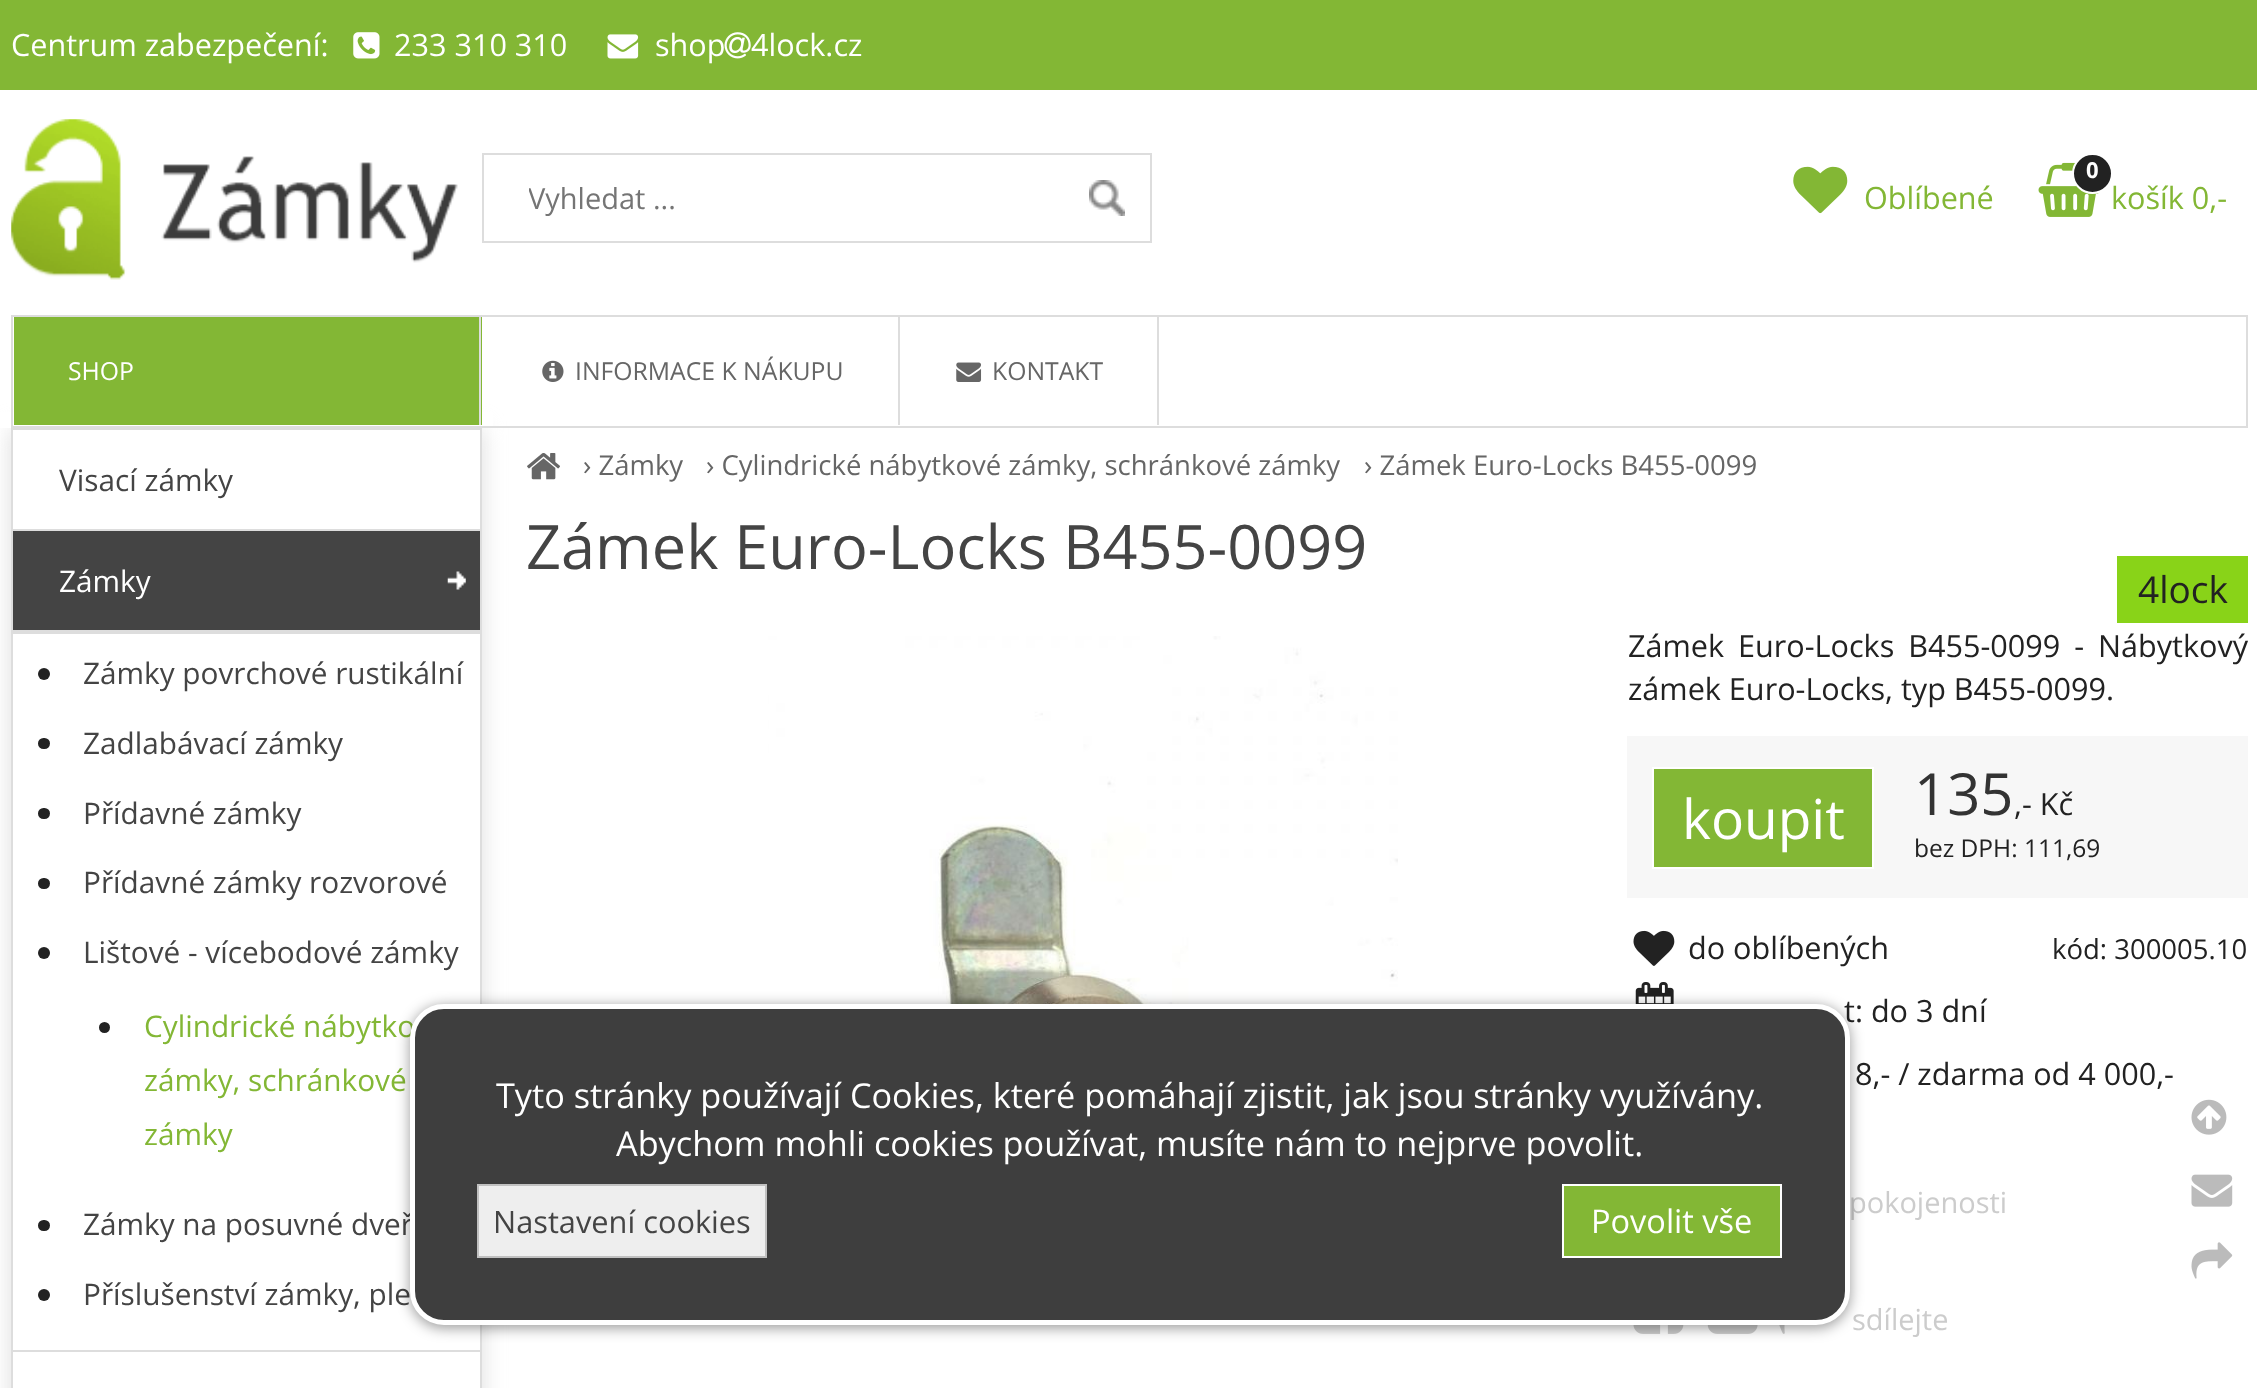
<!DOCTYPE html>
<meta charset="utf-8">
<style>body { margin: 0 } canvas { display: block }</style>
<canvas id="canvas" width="2257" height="1388"></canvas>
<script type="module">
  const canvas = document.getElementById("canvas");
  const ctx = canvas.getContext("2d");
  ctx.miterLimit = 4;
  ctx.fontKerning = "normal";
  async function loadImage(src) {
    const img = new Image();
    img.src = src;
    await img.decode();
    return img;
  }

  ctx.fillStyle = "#ffffff";
  ctx.fillRect(0, 0, 2257, 1388);
  ctx.fillStyle = "#83b735";
  ctx.fillRect(0, 0, 2257, 90);
  ctx.fillStyle = "#dddddd";
  ctx.filter = "blur(11px)";
  ctx.beginPath();
  ctx.rect(11, 428, 471, 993);
  ctx.fill();
  ctx.filter = "none";
  ctx.fillStyle = "#ffffff";
  ctx.fillRect(0, 412, 493, 16);
  ctx.font = "30.6px Open Sans";
  ctx.fillText("Centrum zabezpečení:", 11, 56);
  ctx.drawImage(await loadImage("img1.png"), 353, 32, 27, 27);
  ctx.fillText("233 310 310", 394, 56);
  ctx.drawImage(await loadImage("img2.png"), 607, 34, 32, 25);
  ctx.fillText("shop", 655, 56);
  ctx.drawImage(await loadImage("img3.png"), 724, 32, 27, 27);
  ctx.fillText("4lock.cz", 751, 56);
  ctx.drawImage(await loadImage("img4.png"), 11, 119, 447, 161);
  ctx.drawImage(await loadImage("img5.png"), 1089, 180, 36, 36);
  ctx.strokeStyle = "#dddddd";
  ctx.lineWidth = 2;
  ctx.strokeRect(483, 154, 668, 88);
  ctx.save();
  ctx.beginPath();
  ctx.rect(529, 178, 576, 40);
  ctx.clip();
  ctx.font = "29px Open Sans";
  ctx.fillStyle = "#757575";
  ctx.fillText("Vyhledat ...", 528, 209);
  ctx.restore();
  ctx.drawImage(await loadImage("img6.png"), 1793, 166, 55, 48);
  ctx.fillStyle = "#83b735";
  ctx.fillText("Oblíbené", 1864, 209);
  ctx.drawImage(await loadImage("img7.png"), 2038, 162, 62, 55);
  ctx.fillStyle = "#222222";
  ctx.beginPath();
  ctx.arc(2092.5, 173.5, 19.5, 0, Math.PI * 2);
  ctx.fill();
  ctx.strokeStyle = "#ffffff";
  ctx.stroke();
  ctx.font = "bold 22px Open Sans";
  ctx.fillStyle = "#ffffff";
  ctx.fillText("0", 2086, 178);
  ctx.font = "30.6px Open Sans";
  ctx.fillStyle = "#83b735";
  ctx.fillText("košík 0,-", 2111, 209);
  ctx.strokeStyle = "#dddddd";
  ctx.strokeRect(12, 316, 2235, 111);
  ctx.fillRect(14, 317, 468, 108);
  ctx.fillStyle = "#dddddd";
  ctx.fillRect(479, 317, 2, 108);
  ctx.font = "24.75px Open Sans";
  ctx.fillStyle = "#ffffff";
  ctx.fillText("SHOP", 68, 380);
  ctx.fillStyle = "#dddddd";
  ctx.fillRect(898, 317, 2, 108);
  ctx.drawImage(await loadImage("img8.png"), 542, 360, 22, 22);
  ctx.fillStyle = "#666666";
  ctx.fillText("INFORMACE K NÁKUPU", 575, 380);
  ctx.fillStyle = "#dddddd";
  ctx.fillRect(1157, 317, 2, 108);
  ctx.drawImage(await loadImage("img9.png"), 956, 362, 26, 20);
  ctx.fillStyle = "#666666";
  ctx.fillText("KONTAKT", 992, 380);
  ctx.fillStyle = "#ffffff";
  ctx.fillRect(13, 430, 467, 920);
  ctx.strokeRect(12, 429, 469, 101);
  ctx.font = "29.75px Open Sans";
  ctx.fillStyle = "#444444";
  ctx.fillText("Visací zámky", 59, 491);
  ctx.fillRect(13, 531, 467, 99);
  ctx.drawImage(await loadImage("img10.png"), 447, 571, 19, 19);
  ctx.strokeRect(12, 530, 469, 101);
  ctx.fillStyle = "#ffffff";
  ctx.fillText("Zámky", 59, 592);
  ctx.strokeRect(12, 633, 469, 718);
  ctx.fillStyle = "#222222";
  ctx.beginPath();
  ctx.arc(44, 674, 6, 0, Math.PI * 2);
  ctx.fill();
  ctx.fillStyle = "#444444";
  ctx.fillText("Zámky povrchové rustikální", 83, 684);
  ctx.fillStyle = "#222222";
  ctx.beginPath();
  ctx.roundRect(38, 738, 12, 11, 5.5);
  ctx.fill();
  ctx.fillStyle = "#444444";
  ctx.fillText("Zadlabávací zámky", 83, 754);
  ctx.fillStyle = "#222222";
  ctx.beginPath();
  ctx.roundRect(38, 808, 12, 11, 5.5);
  ctx.fill();
  ctx.fillStyle = "#444444";
  ctx.fillText("Přídavné zámky", 83, 824);
  ctx.fillStyle = "#222222";
  ctx.beginPath();
  ctx.roundRect(38, 878, 12, 11, 5.5);
  ctx.fill();
  ctx.fillStyle = "#444444";
  ctx.fillText("Přídavné zámky rozvorové", 83, 893);
  ctx.fillStyle = "#222222";
  ctx.beginPath();
  ctx.arc(44, 953, 6, 0, Math.PI * 2);
  ctx.fill();
  ctx.fillStyle = "#444444";
  ctx.fillText("Lištové - vícebodové zámky", 83, 963);
  ctx.fillStyle = "#222222";
  ctx.beginPath();
  ctx.arc(104.5, 1027.5, 5.5, 0, Math.PI * 2);
  ctx.fill();
  ctx.fillStyle = "#83b735";
  ctx.fillText("Cylindrické nábytko", 144, 1037);
  ctx.fillText("zámky, schránkové", 144, 1091);
  ctx.fillText("zámky", 144, 1145);
  ctx.fillStyle = "#222222";
  ctx.beginPath();
  ctx.roundRect(38, 1220, 12, 11, 5.5);
  ctx.fill();
  ctx.fillStyle = "#444444";
  ctx.fillText("Zámky na posuvné dveř", 83, 1235);
  ctx.fillStyle = "#222222";
  ctx.beginPath();
  ctx.arc(44, 1295, 6, 0, Math.PI * 2);
  ctx.fill();
  ctx.fillStyle = "#444444";
  ctx.fillText("Příslušenství zámky, ple", 83, 1305);
  ctx.fillStyle = "#ffffff";
  ctx.beginPath();
  ctx.rect(12, 1351, 469, 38);
  ctx.fill();
  ctx.stroke();
  ctx.drawImage(await loadImage("img11.png"), 527, 453, 33, 27);
  ctx.font = "27.5px Open Sans";
  ctx.fillStyle = "#666666";
  ctx.fillText("› Zámky", 583, 475);
  ctx.fillText("› Cylindrické nábytkové zámky, schránkové zámky", 706, 475);
  ctx.fillText("› Zámek Euro-Locks B455-0099", 1364, 475);
  ctx.font = "61.25px Open Sans";
  ctx.fillStyle = "#444444";
  ctx.fillText("Zámek Euro-Locks B455-0099", 526, 569);
  ctx.drawImage(await loadImage("img12.png"), 768, 636, 630, 368);
  ctx.fillStyle = "#89d318";
  ctx.fillRect(2117, 556, 131, 67);
  ctx.font = "37px Open Sans";
  ctx.fillStyle = "#222222";
  ctx.fillText("4lock", 2138, 603);
  ctx.wordSpacing = "6px";
  ctx.font = "30.6px Open Sans";
  ctx.fillText("Zámek Euro-Locks B455-0099 - Nábytkový", 1628, 657);
  ctx.wordSpacing = "0px";
  ctx.fillText("zámek Euro-Locks, typ B455-0099.", 1628, 700);
  ctx.fillStyle = "#f7f7f7";
  ctx.fillRect(1627, 736, 621, 162);
  ctx.fillStyle = "#83b735";
  ctx.beginPath();
  ctx.rect(1653, 768, 220, 100);
  ctx.fill();
  ctx.strokeStyle = "#ffffff";
  ctx.stroke();
  ctx.font = "55px Open Sans";
  ctx.fillStyle = "#ffffff";
  ctx.fillText("koupit", 1682, 839);
  ctx.font = "58px Open Sans";
  ctx.fillStyle = "#333333";
  ctx.fillText("135", 1914, 815);
  ctx.font = "30.6px Open Sans";
  ctx.fillStyle = "#222222";
  ctx.fillText(",- Kč", 2014, 815);
  ctx.font = "24.5px Open Sans";
  ctx.fillText("bez DPH: 111,69", 1914, 857);
  ctx.drawImage(await loadImage("img13.png"), 1633, 930, 42, 36);
  ctx.font = "30.6px Open Sans";
  ctx.fillText("do oblíbených", 1688, 959);
  ctx.font = "27.5px Open Sans";
  ctx.fillText("kód: 300005.10", 2052, 959);
  ctx.drawImage(await loadImage("img14.png"), 1635, 982, 39, 22);
  ctx.font = "30.6px Open Sans";
  ctx.fillText("t: do 3 dní", 1844, 1022);
  ctx.fillText("8,- / zdarma od 4 000,-", 1855, 1085);
  ctx.font = "29px Open Sans";
  ctx.fillStyle = "#cccccc";
  ctx.fillText("pokojenosti", 1849, 1213);
  ctx.drawImage(await loadImage("img15.png"), 1633, 1325, 51, 9);
  ctx.drawImage(await loadImage("img16.png"), 1707, 1325, 51, 9);
  ctx.drawImage(await loadImage("img17.png"), 1779, 1325, 6, 9);
  ctx.fillText("sdílejte", 1852, 1330);
  ctx.fillStyle = "rgba(0, 0, 0, 0.4)";
  ctx.filter = "blur(7px)";
  ctx.beginPath();
  ctx.roundRect(410, 1006, 1440, 322, 34);
  ctx.fill();
  ctx.filter = "none";
  ctx.fillStyle = "#3e3e3e";
  ctx.beginPath();
  ctx.roundRect(412.5, 1006.5, 1435, 316, 31.5);
  ctx.fill();
  ctx.lineWidth = 5;
  ctx.stroke();
  ctx.font = "34.25px Open Sans";
  ctx.fillStyle = "#ffffff";
  ctx.fillText("Tyto stránky používají Cookies, které pomáhají zjistit, jak jsou stránky využívány.", 496, 1108);
  ctx.fillText("Abychom mohli cookies používat, musíte nám to nejprve povolit.", 616, 1156);
  ctx.fillStyle = "#eeeeee";
  ctx.beginPath();
  ctx.rect(478, 1185, 288, 72);
  ctx.fill();
  ctx.strokeStyle = "#c0c0c0";
  ctx.lineWidth = 2;
  ctx.stroke();
  ctx.font = "30.75px Open Sans";
  ctx.fillStyle = "#444444";
  ctx.fillText("Nastavení cookies", 493, 1233);
  ctx.fillStyle = "#83b735";
  ctx.beginPath();
  ctx.rect(1563, 1185, 218, 72);
  ctx.fill();
  ctx.strokeStyle = "#ffffff";
  ctx.stroke();
  ctx.font = "32.5px Open Sans";
  ctx.fillStyle = "#ffffff";
  ctx.fillText("Povolit vše", 1591, 1233);
  ctx.drawImage(await loadImage("img18.png"), 2191, 1099, 36, 36);
  ctx.drawImage(await loadImage("img19.png"), 2191, 1174, 42, 33);
  ctx.drawImage(await loadImage("img20.png"), 2191, 1242, 42, 37);
</script>
